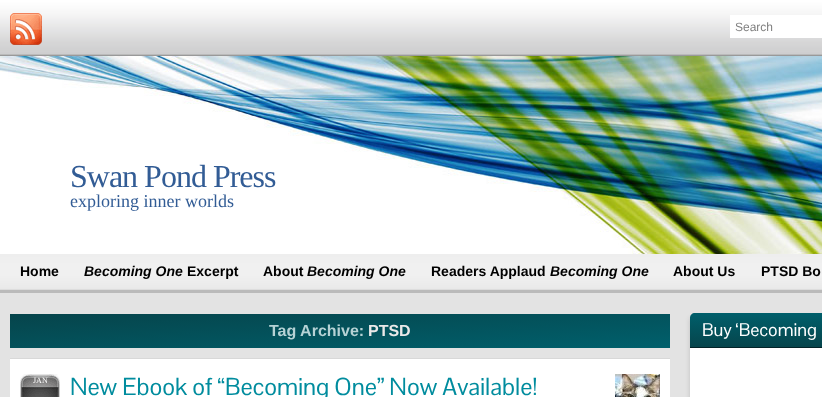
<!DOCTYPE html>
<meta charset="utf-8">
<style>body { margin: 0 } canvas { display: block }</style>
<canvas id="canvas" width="822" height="397"></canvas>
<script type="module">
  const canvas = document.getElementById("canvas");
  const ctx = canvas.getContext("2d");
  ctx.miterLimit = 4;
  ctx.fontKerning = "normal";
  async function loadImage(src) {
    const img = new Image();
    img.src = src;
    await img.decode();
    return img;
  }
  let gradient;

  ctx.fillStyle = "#bababa";
  ctx.fillRect(0, 0, 822, 397);
  ctx.drawImage(await loadImage("img1.png"), 0, 0, 822, 54);
  ctx.drawImage(await loadImage("img2.png"), 10, 13, 32, 32);
  ctx.fillStyle = "#ffffff";
  ctx.fillRect(730, 15, 92, 23);
  ctx.font = "12px Liberation Sans";
  ctx.fillStyle = "#808080";
  ctx.fillText("Search", 735, 31);
  ctx.fillStyle = "#999999";
  ctx.fillRect(0, 55, 822, 1);
  ctx.drawImage(await loadImage("img3.png"), 0, 56, 822, 198);
  ctx.letterSpacing = "-1px";
  ctx.font = "32px Liberation Serif";
  ctx.fillStyle = "#325c95";
  ctx.fillText("Swan Pond Press", 70, 187);
  ctx.letterSpacing = "0px";
  ctx.font = "18px Liberation Serif";
  ctx.fillText("exploring inner worlds", 70, 207);
  ctx.drawImage(await loadImage("img4.png"), 0, 254, 822, 35);
  ctx.fillStyle = "#dddddd";
  ctx.fillRect(0, 289, 822, 1);
  ctx.font = "bold 14px Liberation Sans";
  ctx.fillStyle = "#000000";
  ctx.fillText("Home", 20, 276);
  ctx.font = "italic bold 14px Liberation Sans";
  ctx.fillText("Becoming One", 84, 276);
  ctx.font = "bold 14px Liberation Sans";
  ctx.fillText("Excerpt", 187, 276);
  ctx.fillText("About", 263, 276);
  ctx.font = "italic bold 14px Liberation Sans";
  ctx.fillText("Becoming One", 307, 276);
  ctx.font = "bold 14px Liberation Sans";
  ctx.fillText("Readers Applaud", 431, 276);
  ctx.font = "italic bold 14px Liberation Sans";
  ctx.fillText("Becoming One", 550, 276);
  ctx.font = "bold 14px Liberation Sans";
  ctx.fillText("About Us", 673, 276);
  ctx.fillText("PTSD Bo", 761, 276);
  ctx.fillStyle = "#e3e3e3";
  ctx.fillRect(0, 293, 822, 104);
  gradient = ctx.createLinearGradient(338, 297, 342, 365);
  gradient.addColorStop(0, "#06454c");
  gradient.addColorStop(1, "#005f6b");
  ctx.fillStyle = gradient;
  ctx.fillRect(10, 314, 660, 34);
  ctx.font = "bold 16px Liberation Sans";
  ctx.fillStyle = "#b6d2d5";
  ctx.fillText("Tag Archive:", 269, 336);
  ctx.fillStyle = "#eae9e9";
  ctx.fillText("PTSD", 368, 336);
  ctx.fillStyle = "#ffffff";
  ctx.fillRect(10, 359, 660, 38);
  ctx.fillStyle = "#d8d8d8";
  ctx.fillRect(10, 358, 660, 1);
  ctx.drawImage(await loadImage("img5.png"), 20, 374, 40, 23);
  ctx.font = "8px Liberation Serif";
  ctx.fillStyle = "#ffffff";
  ctx.fillText("JAN", 33, 383);
  ctx.font = "24px Pontano Sans";
  ctx.fillStyle = "#008c9e";
  ctx.fillText("New Ebook of “Becoming One” Now Available!", 70, 395);
  ctx.drawImage(await loadImage("img6.png"), 615, 374, 45, 23);
  ctx.fillStyle = "rgba(0, 0, 0, 0.15)";
  ctx.filter = "blur(2.5px)";
  ctx.beginPath();
  ctx.rect(690, 318, 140, 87);
  ctx.fill();
  ctx.filter = "none";
  ctx.fillStyle = "#ffffff";
  ctx.fillRect(690, 348, 132, 49);
  gradient = ctx.createLinearGradient(820, 313, 820, 347);
  gradient.addColorStop(0, "#005f6b");
  gradient.addColorStop(1, "#06454c");
  ctx.fillStyle = gradient;
  ctx.beginPath();
  ctx.moveTo(695, 313);
  ctx.lineTo(822, 313);
  ctx.bezierCurveTo(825, 313, 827, 315, 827, 318);
  ctx.lineTo(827, 347);
  ctx.lineTo(690, 347);
  ctx.lineTo(690, 318);
  ctx.bezierCurveTo(690, 315, 692, 313, 695, 313);
  ctx.closePath();
  ctx.fill();
  ctx.fillStyle = "#022328";
  ctx.fillRect(690, 347, 132, 1);
  ctx.font = "18px Pontano Sans";
  ctx.fillStyle = "#ffffff";
  ctx.fillText("Buy ‘Becoming", 702, 336);
</script>
